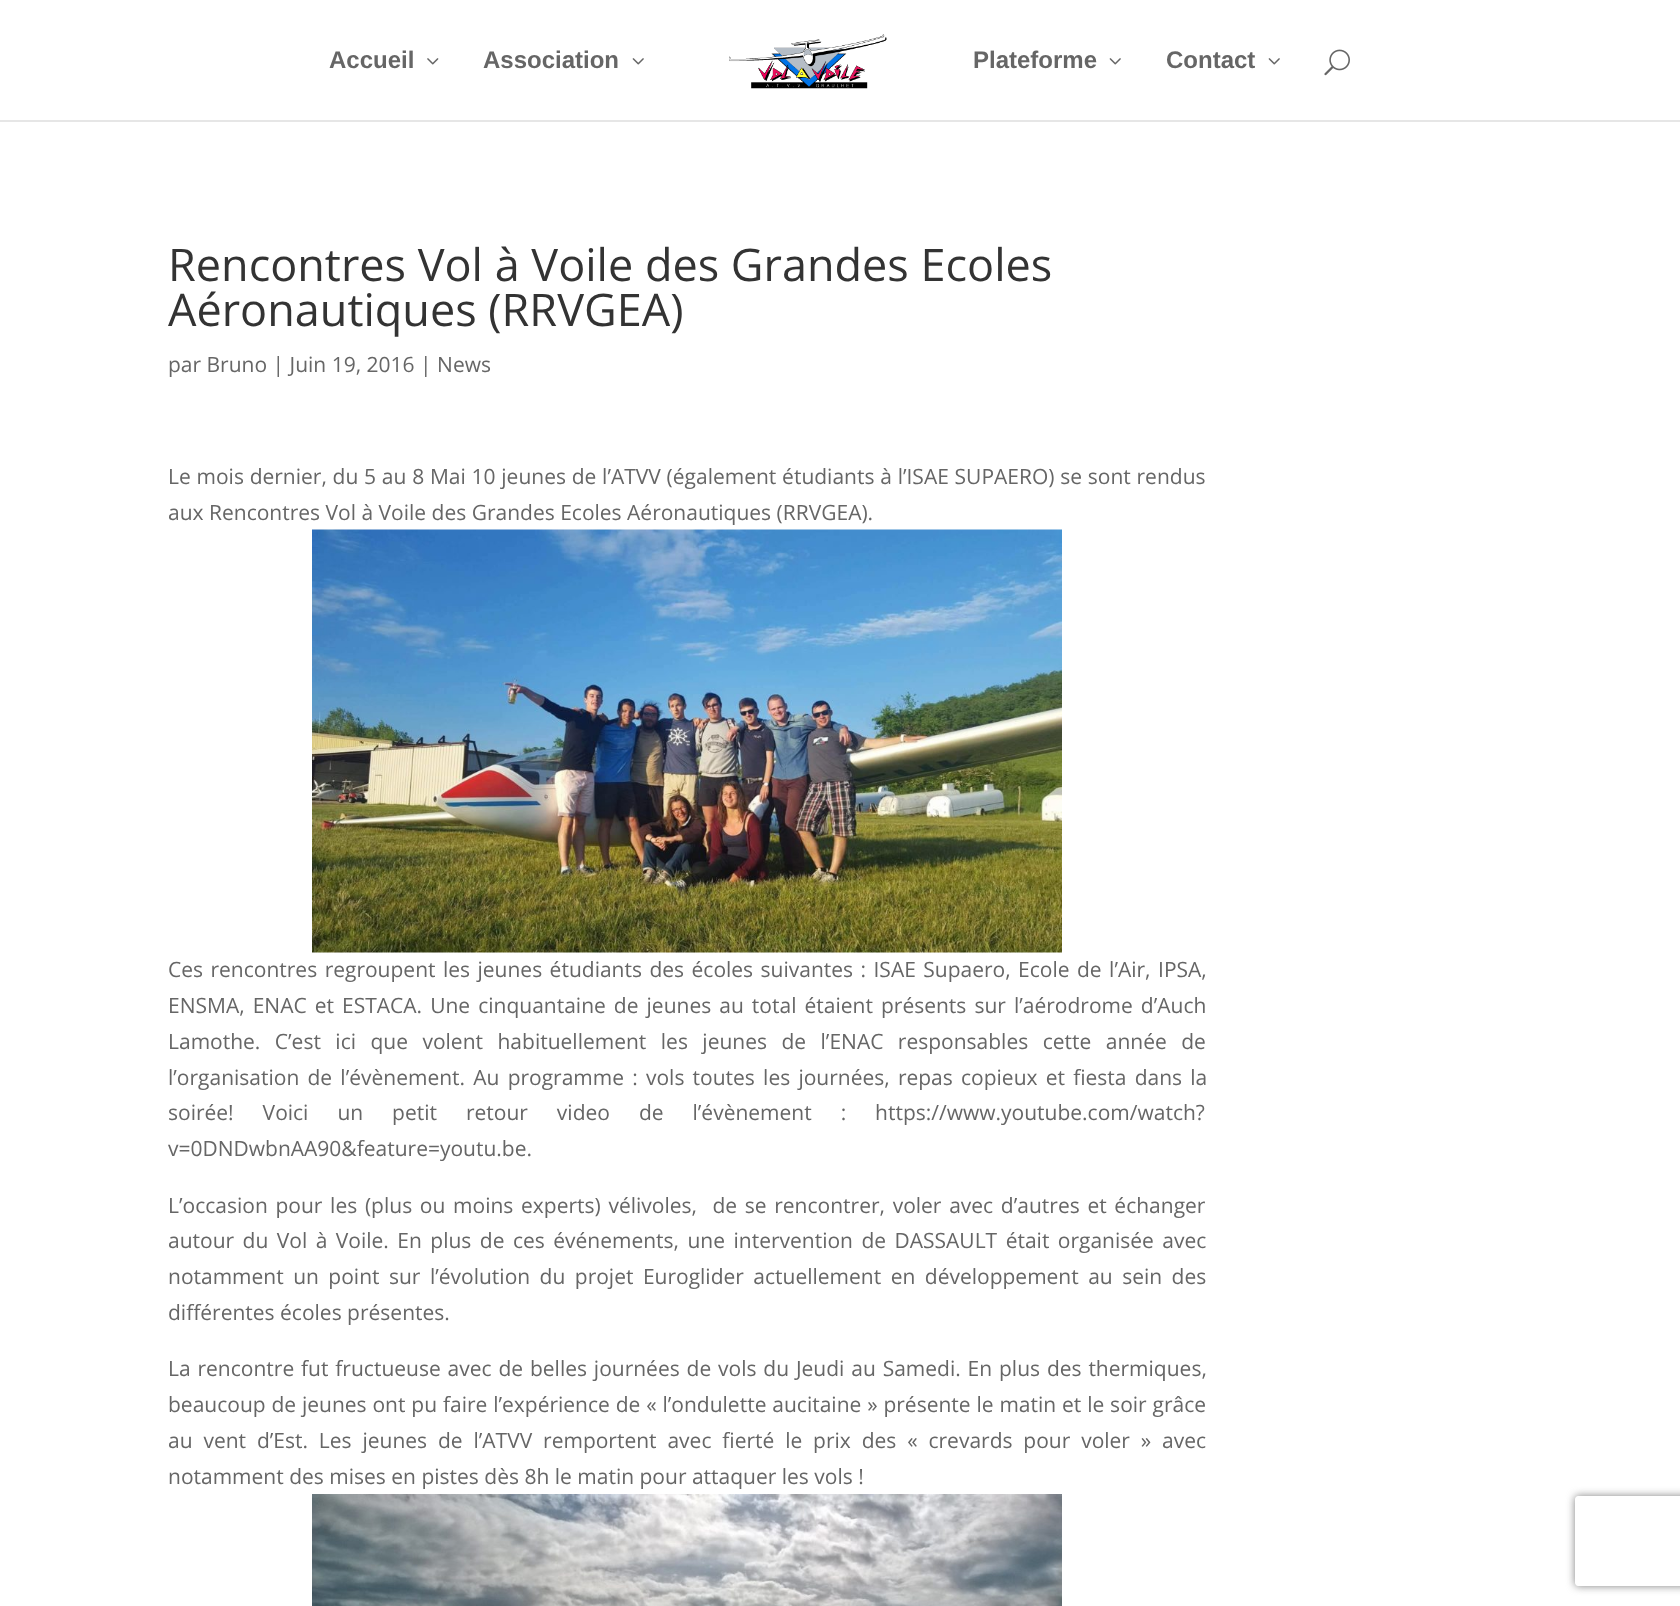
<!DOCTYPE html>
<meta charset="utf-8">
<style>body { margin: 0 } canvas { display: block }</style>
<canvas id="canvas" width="1680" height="1606"></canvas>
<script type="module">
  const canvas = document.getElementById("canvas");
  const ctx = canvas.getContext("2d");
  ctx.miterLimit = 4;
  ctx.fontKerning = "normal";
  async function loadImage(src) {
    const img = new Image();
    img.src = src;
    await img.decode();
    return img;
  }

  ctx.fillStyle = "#ffffff";
  ctx.fillRect(0, 0, 1680, 1606);
  ctx.fillStyle = "#e6e6e6";
  ctx.fillRect(0, 120, 1680, 2);
  ctx.font = "bold 24px Liberation Sans";
  ctx.fillStyle = "#666666";
  ctx.fillText("Accueil", 329, 68);
  ctx.drawImage(await loadImage("img1.png"), 427, 58, 12, 7);
  ctx.fillText("Association", 483, 68);
  ctx.drawImage(await loadImage("img2.png"), 632, 58, 12, 7);
  ctx.drawImage(await loadImage("img3.png"), 729, 34, 158, 55);
  ctx.fillText("Plateforme", 973, 68);
  ctx.drawImage(await loadImage("img2.png"), 1109, 58, 12, 7);
  ctx.fillText("Contact", 1166, 68);
  ctx.drawImage(await loadImage("img2.png"), 1268, 58, 12, 7);
  ctx.drawImage(await loadImage("img4.png"), 1324, 49, 26, 27);
  ctx.font = "45px Open Sans";
  ctx.fillStyle = "#333333";
  ctx.fillText("Rencontres Vol à Voile des Grandes Ecoles", 168, 281);
  ctx.fillText("Aéronautiques (RRVGEA)", 168, 326);
  ctx.font = "21px Open Sans";
  ctx.fillStyle = "#666666";
  ctx.fillText("par Bruno | Juin 19, 2016 | News", 168, 372);
  ctx.wordSpacing = "0.3px";
  ctx.fillText("Le mois dernier, du 5 au 8 Mai 10 jeunes de l’ATVV (également étudiants à l’ISAE SUPAERO) se sont rendus", 168, 484);
  ctx.wordSpacing = "0px";
  ctx.fillText("aux Rencontres Vol à Voile des Grandes Ecoles Aéronautiques (RRVGEA).", 168, 520);
  ctx.drawImage(await loadImage("img5.png"), 312, 529, 750, 424);
  ctx.wordSpacing = "2px";
  ctx.fillText("Ces rencontres regroupent les jeunes étudiants des écoles suivantes : ISAE Supaero, Ecole de l’Air, IPSA,", 168, 977);
  ctx.wordSpacing = "2.6px";
  ctx.fillText("ENSMA, ENAC et ESTACA. Une cinquantaine de jeunes au total étaient présents sur l’aérodrome d’Auch", 168, 1013);
  ctx.wordSpacing = "9px";
  ctx.fillText("Lamothe. C’est ici que volent habituellement les jeunes de l’ENAC responsables cette année de", 168, 1049);
  ctx.wordSpacing = "2.75px";
  ctx.fillText("l’organisation de l’évènement. Au programme : vols toutes les journées, repas copieux et fiesta dans la", 168, 1085);
  ctx.wordSpacing = "23.5px";
  ctx.fillText("soirée! Voici un petit retour video de l’évènement : https://www.youtube.com/watch?", 168, 1120);
  ctx.wordSpacing = "0px";
  ctx.fillText("v=0DNDwbnAA90&feature=youtu.be.", 168, 1156);
  ctx.wordSpacing = "2.25px";
  ctx.fillText("L’occasion pour les (plus ou moins experts) vélivoles,  de se rencontrer, voler avec d’autres et échanger", 168, 1213);
  ctx.wordSpacing = "3px";
  ctx.fillText("autour du Vol à Voile. En plus de ces événements, une intervention de DASSAULT était organisée avec", 168, 1248);
  ctx.wordSpacing = "4px";
  ctx.fillText("notamment un point sur l’évolution du projet Euroglider actuellement en développement au sein des", 168, 1284);
  ctx.wordSpacing = "0px";
  ctx.fillText("différentes écoles présentes.", 168, 1320);
  ctx.wordSpacing = "1.4px";
  ctx.fillText("La rencontre fut fructueuse avec de belles journées de vols du Jeudi au Samedi. En plus des thermiques,", 168, 1376);
  ctx.wordSpacing = "0.4px";
  ctx.fillText("beaucoup de jeunes ont pu faire l’expérience de « l’ondulette aucitaine » présente le matin et le soir grâce", 168, 1412);
  ctx.wordSpacing = "5.4px";
  ctx.fillText("au vent d’Est. Les jeunes de l’ATVV remportent avec fierté le prix des « crevards pour voler » avec", 168, 1448);
  ctx.wordSpacing = "0px";
  ctx.fillText("notamment des mises en pistes dès 8h le matin pour attaquer les vols !", 168, 1484);
  ctx.drawImage(await loadImage("img6.png"), 312, 1494, 750, 112);
  ctx.save();
  ctx.beginPath();
  ctx.moveTo(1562, 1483);
  ctx.lineTo(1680, 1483);
  ctx.lineTo(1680, 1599);
  ctx.lineTo(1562, 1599);
  ctx.closePath();
  ctx.moveTo(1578, 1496);
  ctx.lineTo(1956, 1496);
  ctx.bezierCurveTo(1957.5, 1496, 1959, 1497.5, 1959, 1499);
  ctx.lineTo(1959, 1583);
  ctx.bezierCurveTo(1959, 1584.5, 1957.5, 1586, 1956, 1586);
  ctx.lineTo(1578, 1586);
  ctx.bezierCurveTo(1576.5, 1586, 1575, 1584.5, 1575, 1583);
  ctx.lineTo(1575, 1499);
  ctx.bezierCurveTo(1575, 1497.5, 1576.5, 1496, 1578, 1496);
  ctx.closePath();
  ctx.clip("evenodd");
  ctx.fillStyle = "#808080";
  ctx.filter = "blur(4px)";
  ctx.beginPath();
  ctx.roundRect(1575, 1496, 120, 90, 3);
  ctx.fill();
  ctx.filter = "none";
  ctx.restore();
</script>
